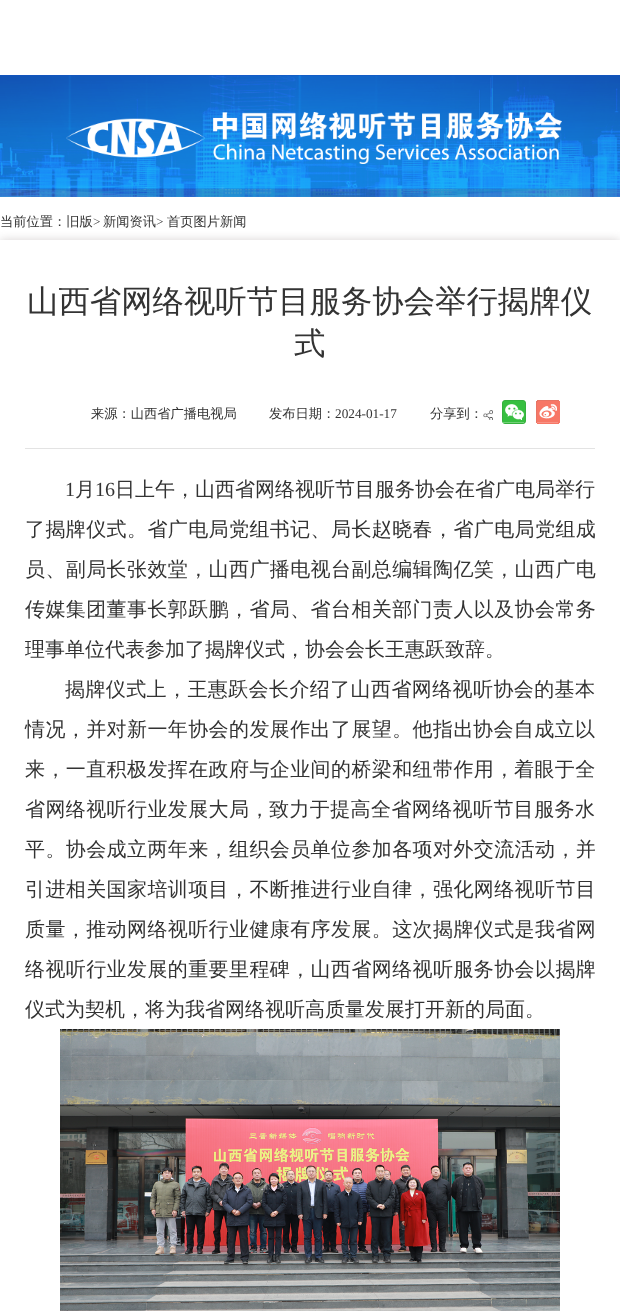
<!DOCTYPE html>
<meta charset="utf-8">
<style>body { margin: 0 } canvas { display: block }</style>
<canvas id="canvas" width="620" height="1311"></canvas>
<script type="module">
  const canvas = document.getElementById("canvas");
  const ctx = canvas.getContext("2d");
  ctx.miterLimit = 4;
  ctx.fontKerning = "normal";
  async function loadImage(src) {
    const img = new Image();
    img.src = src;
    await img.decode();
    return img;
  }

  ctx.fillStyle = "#ffffff";
  ctx.fillRect(0, 0, 620, 1311);
  ctx.drawImage(await loadImage("img1.png"), 0, 75, 620, 122);
  ctx.drawImage(await loadImage("img2.png"), 66, 112, 496, 52);
  ctx.font = "500 13.25px WenQuanYi Zen Hei";
  ctx.fillStyle = "#333333";
  ctx.fillText("当前位置：旧版", 0, 226);
  ctx.font = "13.25px Liberation Serif";
  ctx.fillText(">", 93, 226);
  ctx.font = "500 13.25px WenQuanYi Zen Hei";
  ctx.fillText("新闻资讯", 103, 226);
  ctx.font = "13.25px Liberation Serif";
  ctx.fillText(">", 156, 226);
  ctx.font = "500 13.25px WenQuanYi Zen Hei";
  ctx.fillText("首页图片新闻", 167, 226);
  ctx.save();
  ctx.beginPath();
  ctx.rect(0, 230, 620, 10);
  ctx.clip();
  ctx.fillStyle = "#d7d3d3";
  ctx.filter = "blur(5px)";
  ctx.beginPath();
  ctx.rect(0, 240, 620, 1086);
  ctx.fill();
  ctx.filter = "none";
  ctx.restore();
  ctx.font = "500 31.4px WenQuanYi Zen Hei";
  ctx.fillText("山西省网络视听节目服务协会举行揭牌仪", 27, 312);
  ctx.fillText("式", 294, 354);
  ctx.fillStyle = "#e3e3e3";
  ctx.fillRect(25, 448, 570, 1);
  ctx.font = "500 13.25px WenQuanYi Zen Hei";
  ctx.fillStyle = "#333333";
  ctx.fillText("来源：山西省广播电视局", 91, 418);
  ctx.fillText("发布日期：", 269, 418);
  ctx.font = "13.25px Liberation Serif";
  ctx.fillText("2024-01-17", 335, 418);
  ctx.font = "500 13.25px WenQuanYi Zen Hei";
  ctx.fillText("分享到：", 430, 418);
  ctx.drawImage(await loadImage("img3.png"), 483, 410, 10, 10);
  ctx.drawImage(await loadImage("img4.png"), 502, 400, 24, 24);
  ctx.drawImage(await loadImage("img5.png"), 536, 400, 24, 24);
  ctx.font = "20px Liberation Serif";
  ctx.fillText("1", 65, 496);
  ctx.font = "500 20px WenQuanYi Zen Hei";
  ctx.fillText("月", 75, 496);
  ctx.font = "20px Liberation Serif";
  ctx.fillText("16", 95, 496);
  ctx.font = "500 20px WenQuanYi Zen Hei";
  ctx.fillText("日上午，山西省网络视听节目服务协会在省广电局举行", 115, 496);
  ctx.letterSpacing = "0.4px";
  ctx.fillText("了揭牌仪式。省广电局党组书记、局长赵晓春，省广电局党组成", 25, 536);
  ctx.fillText("员、副局长张效堂，山西广播电视台副总编辑陶亿笑，山西广电", 25, 576);
  ctx.fillText("传媒集团董事长郭跃鹏，省局、省台相关部门责人以及协会常务", 25, 616);
  ctx.letterSpacing = "0px";
  ctx.fillText("理事单位代表参加了揭牌仪式，协会会长王惠跃致辞。", 25, 656);
  ctx.letterSpacing = "0.4px";
  ctx.fillText("揭牌仪式上，王惠跃会长介绍了山西省网络视听协会的基本", 65, 696);
  ctx.fillText("情况，并对新一年协会的发展作出了展望。他指出", 25, 736);
  ctx.fillText("协会自成立以", 473, 736);
  ctx.fillText("来，一直积极发挥在政府与企业间的桥梁和纽带作用，", 25, 776);
  ctx.fillText("着眼于全", 514, 776);
  ctx.fillText("省网络视听行业发展大局，", 25, 816);
  ctx.fillText("致力于提高全省网络视听节目服务水", 269, 816);
  ctx.fillText("平。协会成立两年来，组织会员单位参加各项对外交流活动，并", 25, 856);
  ctx.fillText("引进相关国家培训项目，不断推进行业自律，强化网络视听节目", 25, 896);
  ctx.fillText("质量，推动网络视听行业健康有序发展。这次揭牌仪式是我省网", 25, 936);
  ctx.fillText("络视听行业发展的重要里程碑，山西省网络视听服务协会以揭牌", 25, 976);
  ctx.letterSpacing = "0px";
  ctx.fillText("仪式为契机，将为我省网络视听高质量发展打开新的局面。", 25, 1016);
  ctx.drawImage(await loadImage("img6.png"), 60, 1029, 500, 282);
</script>
